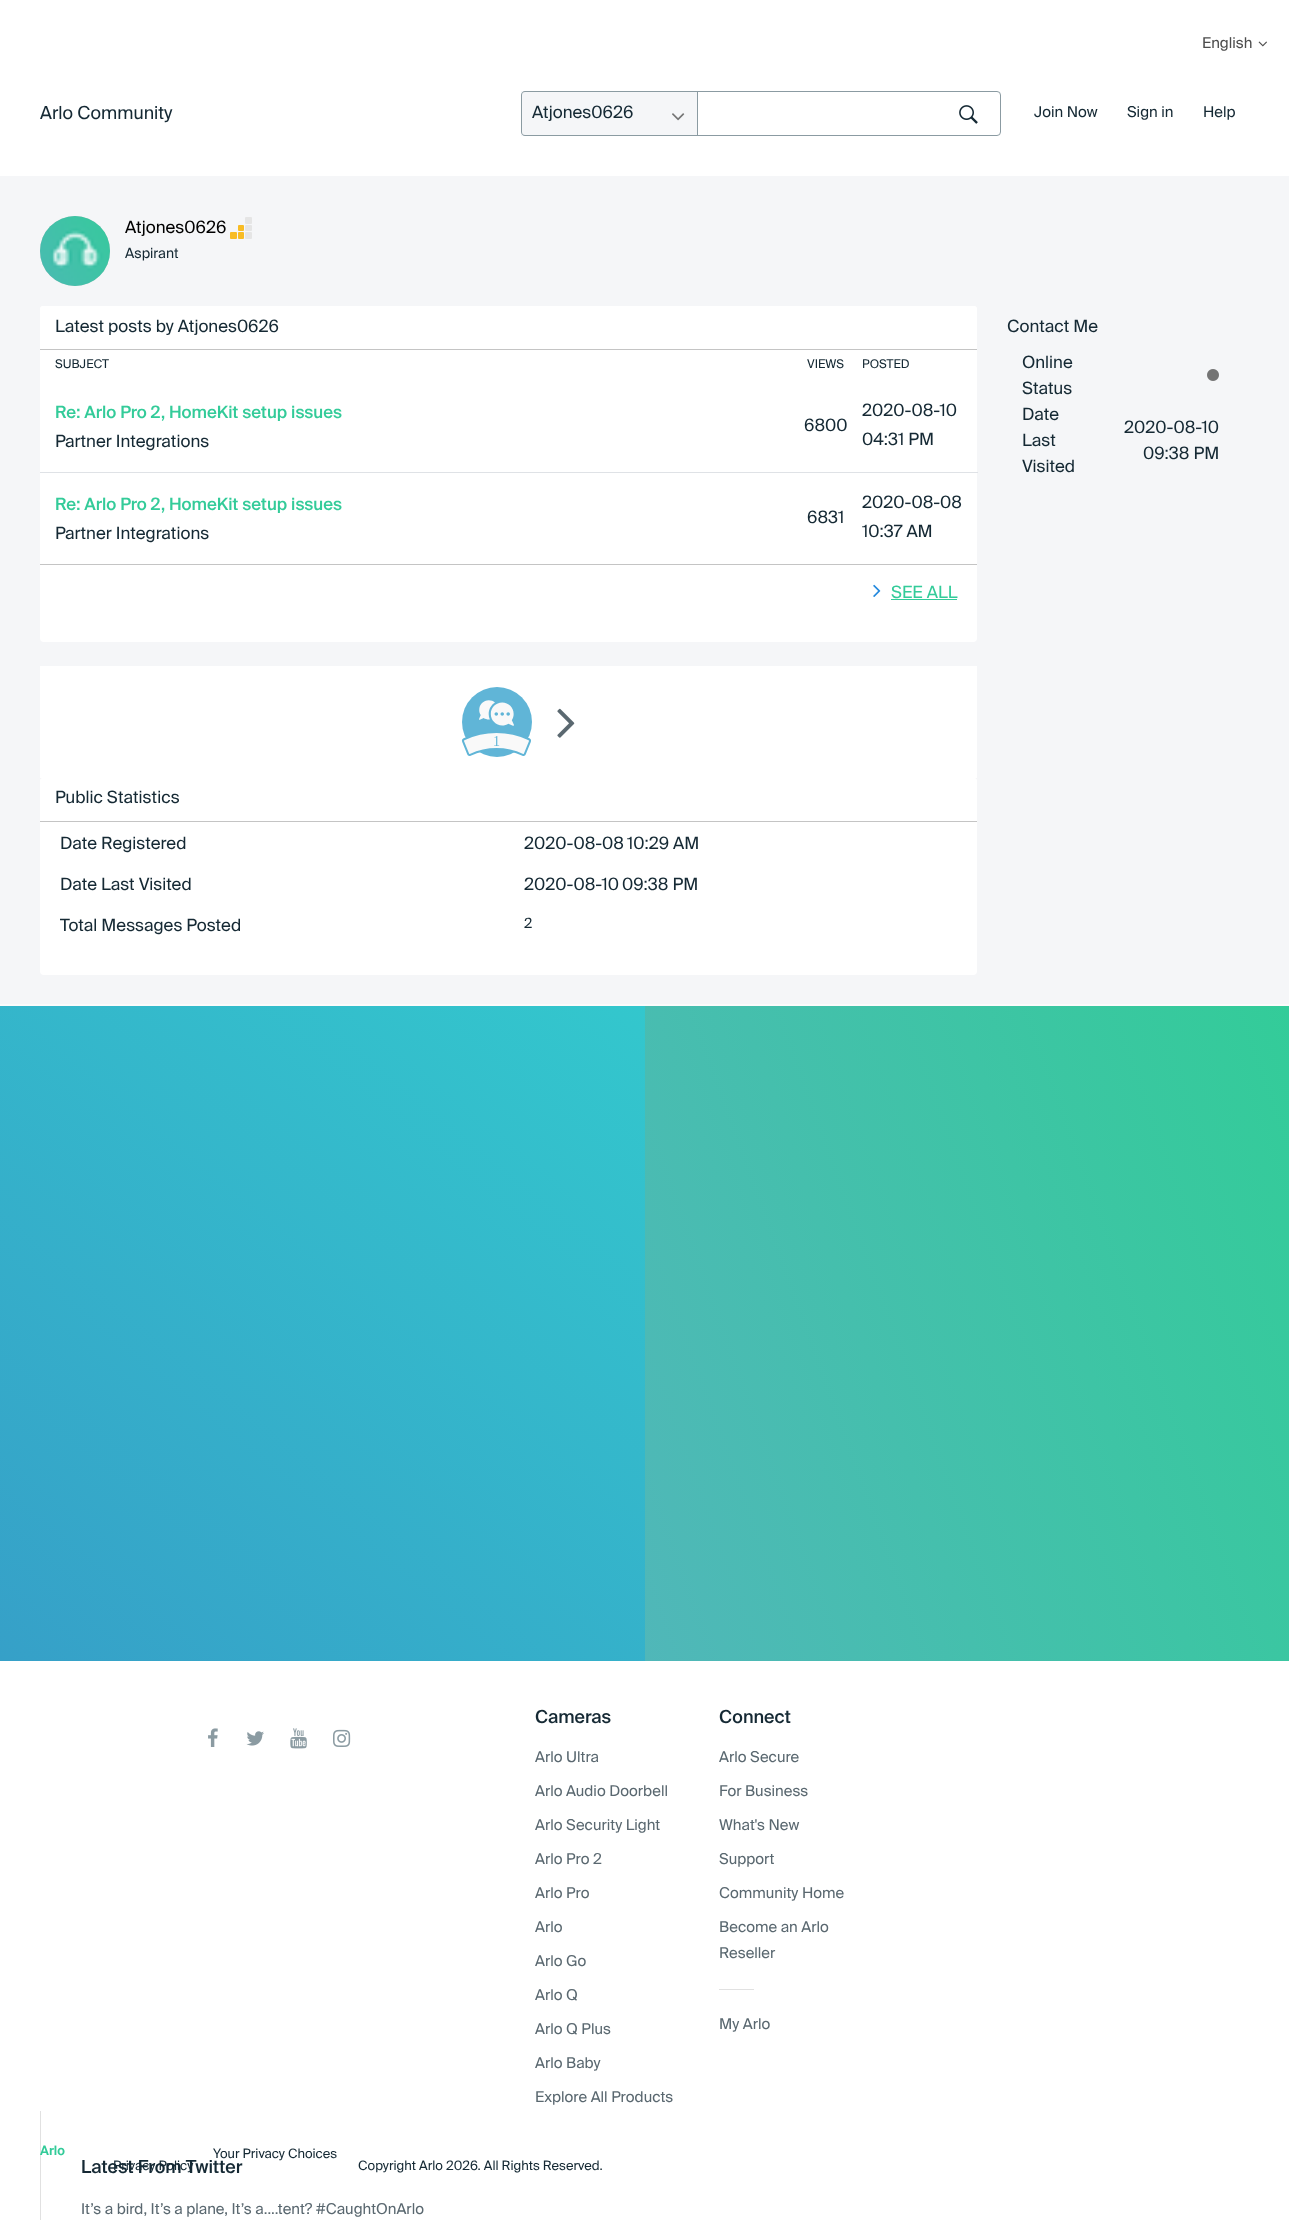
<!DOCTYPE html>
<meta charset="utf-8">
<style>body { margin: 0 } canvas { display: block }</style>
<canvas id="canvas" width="1289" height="2220"></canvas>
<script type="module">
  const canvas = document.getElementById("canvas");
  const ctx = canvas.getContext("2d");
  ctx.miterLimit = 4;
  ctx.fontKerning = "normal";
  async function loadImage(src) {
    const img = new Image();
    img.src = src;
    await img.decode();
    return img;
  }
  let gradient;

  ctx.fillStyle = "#ffffff";
  ctx.fillRect(0, 0, 1289, 2220);
  ctx.font = "15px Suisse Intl";
  ctx.fillStyle = "#4d4d4d";
  ctx.fillText("English", 1202, 48);
  ctx.drawImage(await loadImage("img1.png"), 1258, 41, 9, 6);
  ctx.font = "18px Suisse Intl";
  ctx.fillStyle = "#152934";
  ctx.fillText("Arlo Community", 40, 119);
  ctx.fillStyle = "#f5f6f8";
  ctx.fillRect(521, 91, 176, 45);
  ctx.drawImage(await loadImage("img2.png"), 672, 113, 13, 8);
  ctx.beginPath();
  ctx.roundRect(697.5, 91.5, 303, 44, [0, 3.5, 3.5, 0]);
  ctx.strokeStyle = "#8b9ba2";
  ctx.stroke();
  ctx.fillStyle = "#8b9ba2";
  ctx.beginPath();
  ctx.moveTo(525, 91);
  ctx.lineTo(698, 91);
  ctx.lineTo(698, 136);
  ctx.lineTo(525, 136);
  ctx.bezierCurveTo(523, 136, 521, 134, 521, 132);
  ctx.lineTo(521, 95);
  ctx.bezierCurveTo(521, 93, 523, 91, 525, 91);
  ctx.closePath();
  ctx.moveTo(525, 92);
  ctx.lineTo(698, 92);
  ctx.lineTo(698, 135);
  ctx.lineTo(525, 135);
  ctx.bezierCurveTo(523, 135, 522, 134, 522, 132);
  ctx.lineTo(522, 95);
  ctx.bezierCurveTo(522, 93, 523, 92, 525, 92);
  ctx.closePath();
  ctx.fill("evenodd");
  ctx.font = "17px Suisse Intl";
  ctx.fillStyle = "#152934";
  ctx.fillText("Atjones0626", 532, 118);
  ctx.drawImage(await loadImage("img3.png"), 959, 105, 19, 19);
  ctx.font = "15px Suisse Intl";
  ctx.fillText("Join Now", 1034, 117);
  ctx.fillText("Sign in", 1127, 117);
  ctx.fillText("Help", 1203, 117);
  ctx.fillStyle = "#f5f6f8";
  ctx.fillRect(0, 176, 1289, 828);
  ctx.fillStyle = "#c4c4c4";
  ctx.filter = "blur(0.5px)";
  ctx.beginPath();
  ctx.roundRect(40, 216, 70, 70, 35);
  ctx.fill();
  ctx.filter = "none";
  ctx.drawImage(await loadImage("img4.png"), 40, 216, 70, 70);
  ctx.font = "17px Suisse Intl";
  ctx.fillStyle = "#000000";
  ctx.fillText("Atjones0626", 125, 233);
  ctx.drawImage(await loadImage("img5.png"), 230, 217, 22, 22);
  ctx.font = "14px Suisse Intl";
  ctx.fillStyle = "#152934";
  ctx.fillText("Aspirant", 125, 258);
  ctx.fillStyle = "#ffffff";
  ctx.beginPath();
  ctx.roundRect(40, 306, 937, 336, 4);
  ctx.fill();
  ctx.beginPath();
  ctx.roundRect(40, 306, 937, 44, [3, 3, 0, 0]);
  ctx.fill();
  ctx.fillStyle = "#c4c4c4";
  ctx.fillRect(40, 349, 937, 1);
  ctx.font = "17px Suisse Intl";
  ctx.fillStyle = "#152934";
  ctx.fillText("Latest posts by Atjones0626", 55, 332);
  ctx.fillStyle = "#c4c4c4";
  ctx.fillRect(40, 564, 937, 1);
  ctx.font = "12px Suisse Intl";
  ctx.fillStyle = "#152934";
  ctx.fillText("SUBJECT", 55, 368);
  ctx.fillText("VIEWS", 807, 368);
  ctx.fillText("POSTED", 862, 368);
  ctx.font = "500 17px Suisse Intl";
  ctx.fillStyle = "#33cb99";
  ctx.fillText("Re: Arlo Pro 2, HomeKit setup issues", 55, 418);
  ctx.font = "17px Suisse Intl";
  ctx.fillStyle = "#152934";
  ctx.fillText("Partner Integrations", 55, 447);
  ctx.fillText("6800", 804, 431);
  ctx.fillText("2020-08-10", 862, 416);
  ctx.fillText("04:31 PM", 862, 445);
  ctx.font = "500 17px Suisse Intl";
  ctx.fillStyle = "#33cb99";
  ctx.fillText("Re: Arlo Pro 2, HomeKit setup issues", 55, 510);
  ctx.font = "17px Suisse Intl";
  ctx.fillStyle = "#152934";
  ctx.fillText("Partner Integrations", 55, 539);
  ctx.fillText("6831", 807, 523);
  ctx.fillStyle = "#dfe2e6";
  ctx.fillRect(40, 472, 938, 1);
  ctx.fillStyle = "#152934";
  ctx.fillText("2020-08-08", 862, 508);
  ctx.fillText("10:37 AM", 862, 537);
  ctx.drawImage(await loadImage("img6.png"), 873, 584, 8, 13);
  ctx.fillStyle = "#33cb99";
  ctx.fillText("SEE ALL", 891, 598);
  ctx.fillRect(891, 599, 66, 1);
  ctx.fillStyle = "#ffffff";
  ctx.fillRect(40, 666, 937, 112);
  ctx.drawImage(await loadImage("img7.png"), 461, 687, 71, 70);
  ctx.drawImage(await loadImage("img8.png"), 557, 708, 18, 30);
  ctx.beginPath();
  ctx.roundRect(40, 778, 937, 197, 4);
  ctx.fill();
  ctx.beginPath();
  ctx.roundRect(40, 778, 937, 44, [3, 3, 0, 0]);
  ctx.fill();
  ctx.fillStyle = "#c4c4c4";
  ctx.fillRect(40, 821, 937, 1);
  ctx.fillStyle = "#152934";
  ctx.fillText("Public Statistics", 55, 803);
  ctx.fillText("Date Registered", 60, 849);
  ctx.fillText("2020-08-08", 524, 849);
  ctx.fillText("10:29 AM", 627, 849);
  ctx.fillText("Date Last Visited", 60, 890);
  ctx.fillText("2020-08-10", 524, 890);
  ctx.fillText("09:38 PM", 622, 890);
  ctx.fillText("Total Messages Posted", 60, 931);
  ctx.font = "14px Suisse Intl";
  ctx.fillText("2", 524, 928);
  ctx.font = "17px Suisse Intl";
  ctx.fillText("Contact Me", 1007, 332);
  ctx.fillText("Online", 1022, 368);
  ctx.fillText("Status", 1022, 394);
  ctx.drawImage(await loadImage("img9.png"), 1207, 369, 12, 12);
  ctx.fillText("Date", 1022, 420);
  ctx.fillText("Last", 1022, 446);
  ctx.fillText("Visited", 1022, 472);
  ctx.fillText("2020-08-10", 1124, 433);
  ctx.fillText("09:38 PM", 1143, 459);
  ctx.fillStyle = "#fbfbfb";
  ctx.fillRect(0, 1004, 1289, 2);
  gradient = ctx.createLinearGradient(610, 978, 35, 1689);
  gradient.addColorStop(0, "#33c7cd");
  gradient.addColorStop(1, "#36a0c8");
  ctx.fillStyle = gradient;
  ctx.fillRect(0, 1006, 645, 655);
  gradient = ctx.createLinearGradient(577, 1475, 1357, 1192);
  gradient.addColorStop(0, "#50b7b9");
  gradient.addColorStop(1, "#33cc99");
  ctx.fillStyle = gradient;
  ctx.fillRect(645, 1006, 644, 655);
  ctx.font = "500 18px Suisse Intl";
  ctx.fillStyle = "#152934";
  ctx.fillText("Cameras", 535, 1723);
  ctx.font = "15px Suisse Intl";
  ctx.fillStyle = "#5a6870";
  ctx.fillText("Arlo Ultra", 535, 1762);
  ctx.fillText("Arlo Audio Doorbell", 535, 1796);
  ctx.fillText("Arlo Security Light", 535, 1830);
  ctx.fillText("Arlo Pro 2", 535, 1864);
  ctx.fillText("Arlo Pro", 535, 1898);
  ctx.fillText("Arlo", 535, 1932);
  ctx.fillText("Arlo Go", 535, 1966);
  ctx.fillText("Arlo Q", 535, 2000);
  ctx.fillText("Arlo Q Plus", 535, 2034);
  ctx.fillText("Arlo Baby", 535, 2068);
  ctx.fillText("Explore All Products", 535, 2102);
  ctx.font = "500 18px Suisse Intl";
  ctx.fillStyle = "#152934";
  ctx.fillText("Connect", 719, 1723);
  ctx.font = "15px Suisse Intl";
  ctx.fillStyle = "#5a6870";
  ctx.fillText("Arlo Secure", 719, 1762);
  ctx.fillText("For Business", 719, 1796);
  ctx.fillText("What's New", 719, 1830);
  ctx.fillText("Support", 719, 1864);
  ctx.fillText("Community Home", 719, 1898);
  ctx.fillText("Become an Arlo", 719, 1932);
  ctx.fillText("Reseller", 719, 1958);
  ctx.fillStyle = "#e1e1e1";
  ctx.fillRect(719, 1989, 35, 1);
  ctx.fillStyle = "#5a6870";
  ctx.fillText("My Arlo", 719, 2029);
  ctx.fillStyle = "#e1e1e1";
  ctx.fillRect(40, 2111, 1, 109);
  ctx.font = "500 18px Suisse Intl";
  ctx.fillStyle = "#152934";
  ctx.fillText("Latest From Twitter", 81, 2173);
  ctx.font = "15px Suisse Intl";
  ctx.fillStyle = "#5a6870";
  ctx.fillText("It’s a bird, It’s a plane, It’s a....tent? #CaughtOnArlo", 81, 2214);
  ctx.drawImage(await loadImage("img10.png"), 208, 1728, 10, 19);
  ctx.drawImage(await loadImage("img11.png"), 246, 1731, 18, 15);
  ctx.drawImage(await loadImage("img12.png"), 290, 1728, 17, 21);
  ctx.drawImage(await loadImage("img13.png"), 333, 1729, 18, 18);
  ctx.font = "600 13px Suisse Intl";
  ctx.fillStyle = "#33cb99";
  ctx.fillText("Arlo", 40, 2155);
  ctx.font = "13px Suisse Intl";
  ctx.fillStyle = "#152934";
  ctx.fillText("Your Privacy Choices", 213, 2158);
  ctx.fillText("Privacy Policy", 113, 2170);
  ctx.fillText("Copyright Arlo 2026. All Rights Reserved.", 358, 2170);
</script>
